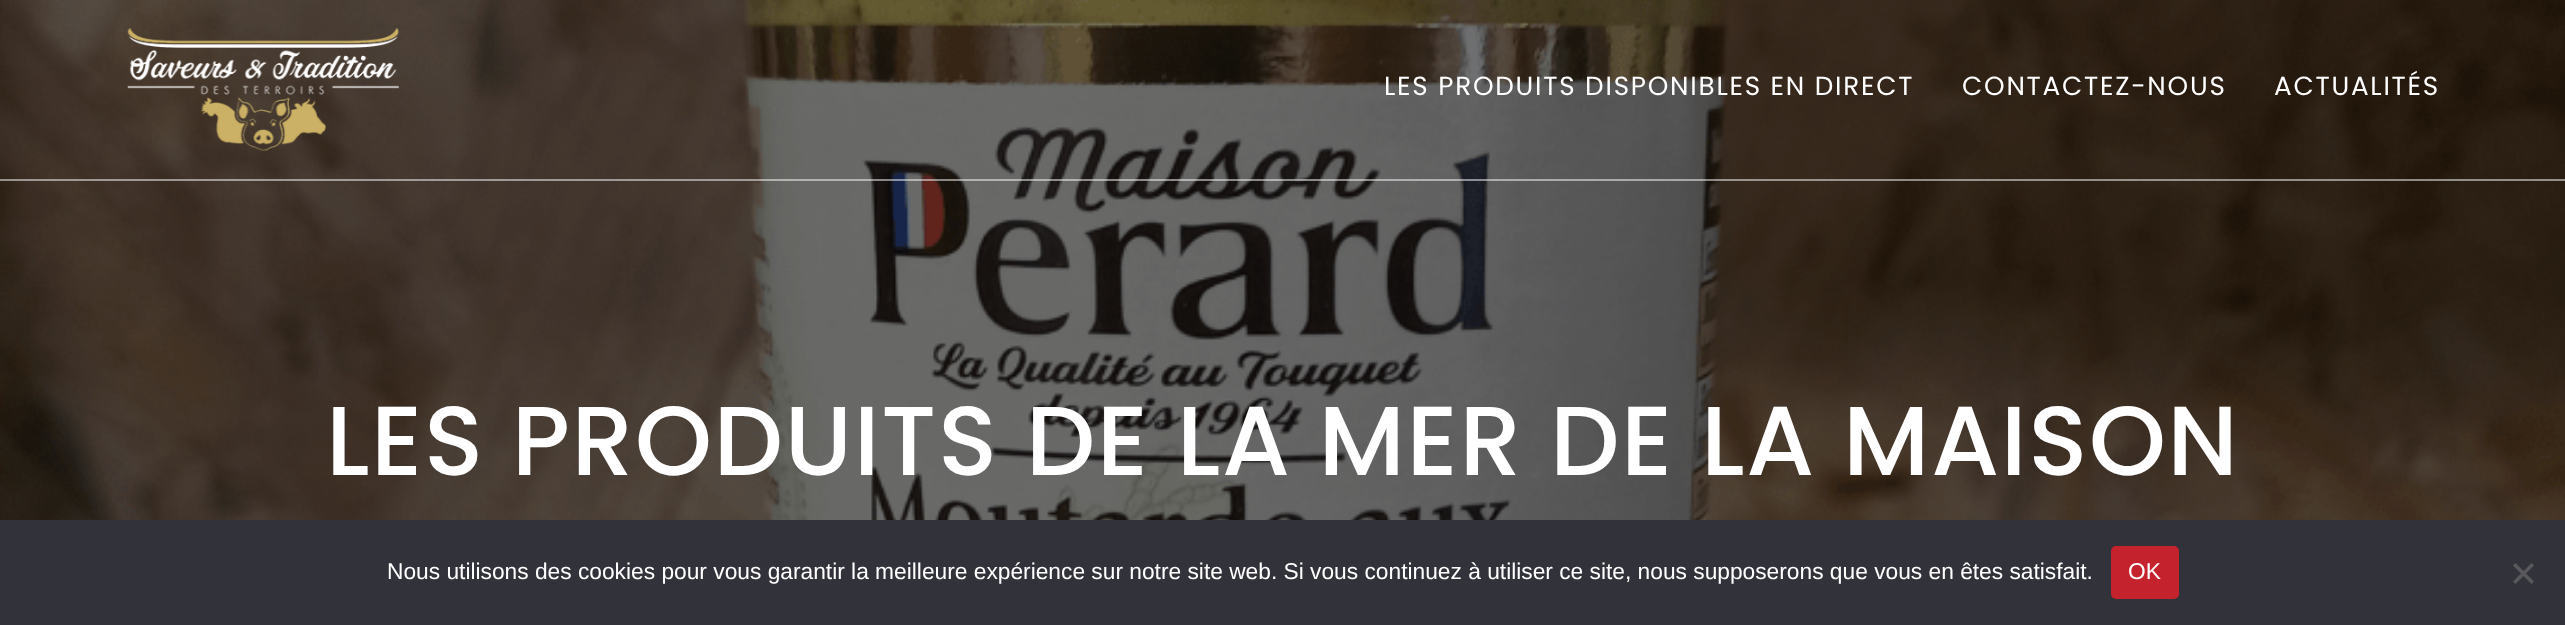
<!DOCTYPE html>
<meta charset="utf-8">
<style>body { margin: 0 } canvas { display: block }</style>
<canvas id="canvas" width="2565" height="625"></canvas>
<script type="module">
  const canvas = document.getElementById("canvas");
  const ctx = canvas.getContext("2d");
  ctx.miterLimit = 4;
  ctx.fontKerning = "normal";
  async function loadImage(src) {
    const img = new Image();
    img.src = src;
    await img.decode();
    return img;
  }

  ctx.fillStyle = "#ffffff";
  ctx.fillRect(0, 0, 2565, 625);
  ctx.drawImage(await loadImage("img2.png"), 0, 0, 2565, 520);
  ctx.fillStyle = "rgba(255, 255, 255, 0.5)";
  ctx.fillRect(0, 179, 2565, 2);
  ctx.drawImage(await loadImage("img1.png"), 127, 28, 272, 123);
  ctx.letterSpacing = "1.75px";
  ctx.font = "26.25px Poppins";
  ctx.fillStyle = "#ffffff";
  ctx.fillText("LES PRODUITS DISPONIBLES EN DIRECT", 1384, 95);
  ctx.fillText("CONTACTEZ-NOUS", 1962, 95);
  ctx.fillText("ACTUALITÉS", 2274, 95);
  ctx.letterSpacing = "1.55px";
  ctx.font = "500 98px Poppins";
  ctx.fillText("LES PRODUITS DE LA MER DE LA MAISON", 326, 475);
  ctx.fillStyle = "#32323a";
  ctx.fillRect(0, 520, 2565, 105);
  ctx.letterSpacing = "0px";
  ctx.font = "22.75px Liberation Sans";
  ctx.fillStyle = "#ffffff";
  ctx.fillText("Nous utilisons des cookies pour vous garantir la meilleure expérience sur notre site web. Si vous continuez à utiliser ce site, nous supposerons que vous en êtes satisfait.", 387, 579);
  ctx.fillStyle = "#c4232d";
  ctx.beginPath();
  ctx.roundRect(2111, 546, 68, 53, 5);
  ctx.fill();
  ctx.fillStyle = "#ffffff";
  ctx.fillText("OK", 2128, 579);
  ctx.fillStyle = "#59595d";
  ctx.beginPath();
  ctx.moveTo(2531.5, 563);
  ctx.lineTo(2534, 565.5);
  ctx.lineTo(2515.5, 584);
  ctx.lineTo(2513, 581.5);
  ctx.closePath();
  ctx.fill();
  ctx.beginPath();
  ctx.moveTo(2513, 565.5);
  ctx.lineTo(2515.5, 563);
  ctx.lineTo(2534, 581.5);
  ctx.lineTo(2531.5, 584);
  ctx.closePath();
  ctx.fill();
</script>
